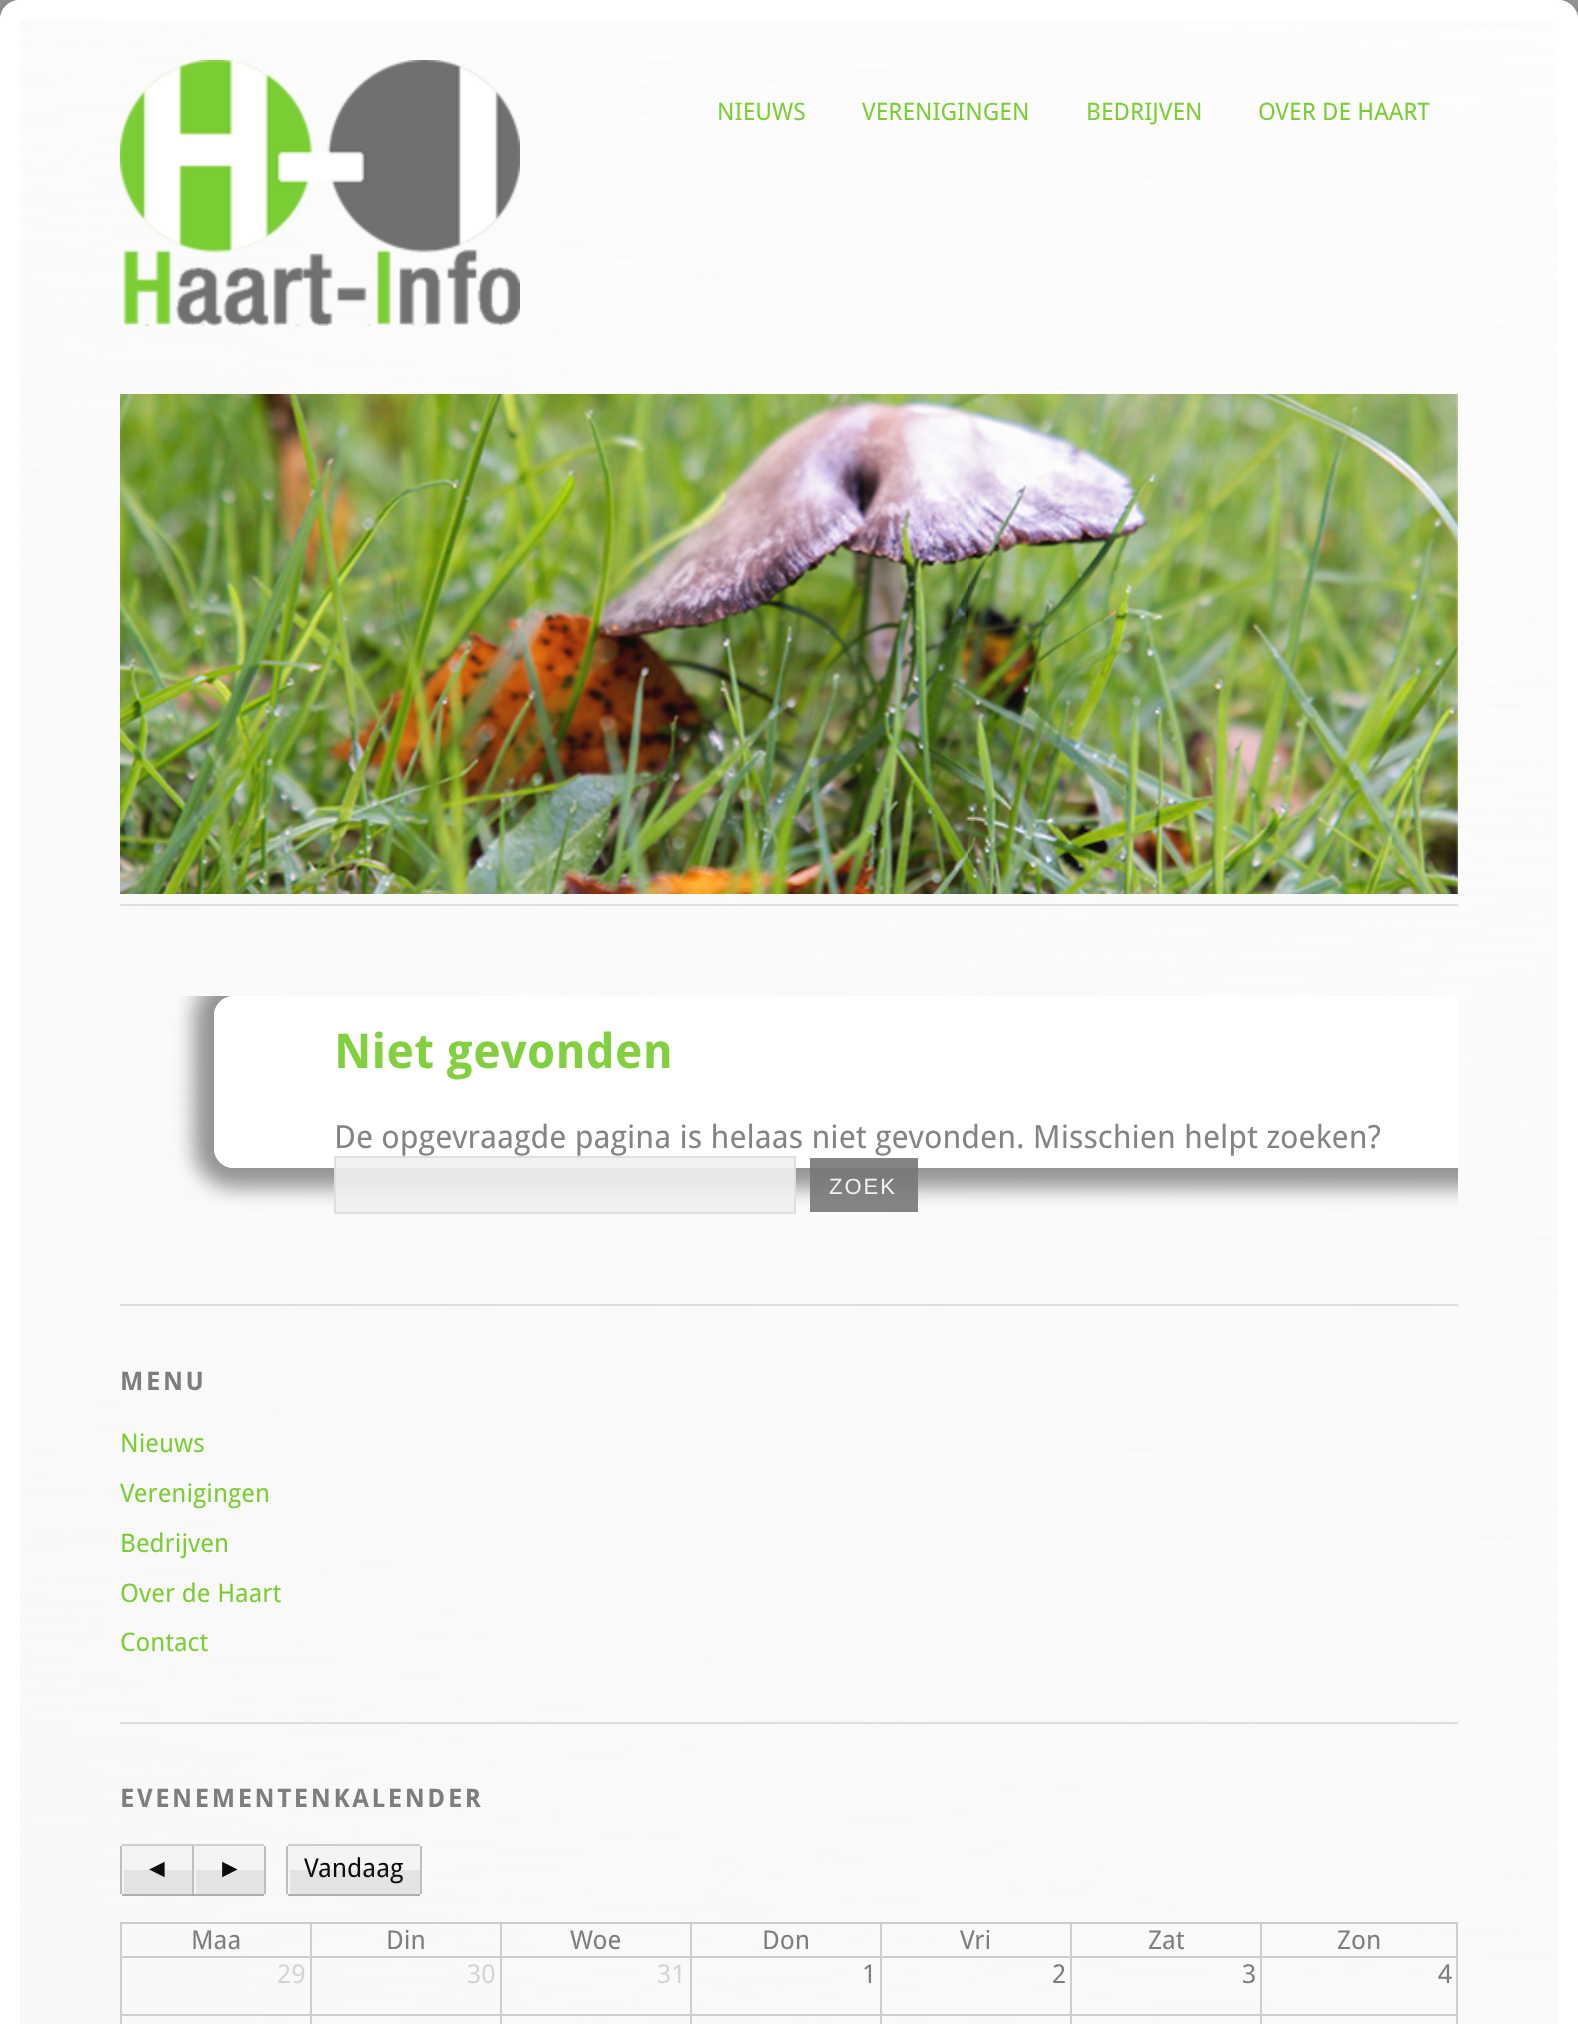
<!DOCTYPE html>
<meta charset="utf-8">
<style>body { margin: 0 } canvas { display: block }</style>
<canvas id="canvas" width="1578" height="2024"></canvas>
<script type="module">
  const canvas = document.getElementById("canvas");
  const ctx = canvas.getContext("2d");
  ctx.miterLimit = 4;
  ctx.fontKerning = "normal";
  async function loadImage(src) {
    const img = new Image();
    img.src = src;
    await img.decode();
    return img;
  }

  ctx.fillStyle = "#ffffff";
  ctx.fillRect(0, 0, 1578, 2024);
  ctx.drawImage(await loadImage("img1.png"), 0, 0, 1578, 2024);
  ctx.save();
  ctx.beginPath();
  ctx.moveTo(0, 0);
  ctx.lineTo(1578, 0);
  ctx.lineTo(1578, 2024);
  ctx.lineTo(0, 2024);
  ctx.closePath();
  ctx.moveTo(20, 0);
  ctx.lineTo(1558, 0);
  ctx.bezierCurveTo(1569, 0, 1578, 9, 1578, 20);
  ctx.lineTo(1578, 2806);
  ctx.bezierCurveTo(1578, 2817, 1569, 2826, 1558, 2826);
  ctx.lineTo(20, 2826);
  ctx.bezierCurveTo(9, 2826, 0, 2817, 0, 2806);
  ctx.lineTo(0, 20);
  ctx.bezierCurveTo(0, 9, 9, 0, 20, 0);
  ctx.closePath();
  ctx.clip("evenodd");
  ctx.fillStyle = "rgba(136, 136, 136, 0.95)";
  ctx.filter = "blur(10px)";
  ctx.beginPath();
  ctx.roundRect(-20, -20, 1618, 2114, 40);
  ctx.fill();
  ctx.filter = "none";
  ctx.restore();
  ctx.fillStyle = "rgba(255, 255, 255, 0.95)";
  ctx.beginPath();
  ctx.roundRect(0, 0, 1578, 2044, 20);
  ctx.fill();
  ctx.beginPath();
  ctx.roundRect(10, 10, 1558, 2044, 10);
  ctx.strokeStyle = "rgba(255, 255, 255, 0.95)";
  ctx.lineWidth = 20;
  ctx.stroke();
  ctx.drawImage(await loadImage("img2.png"), 120, 60, 400, 266);
  ctx.font = "24px Droid Sans";
  ctx.fillStyle = "#7bcd34";
  ctx.fillText("NIEUWS", 717, 120);
  ctx.fillText("VERENIGINGEN", 862, 120);
  ctx.fillText("BEDRIJVEN", 1086, 120);
  ctx.fillText("OVER DE HAART", 1258, 120);
  ctx.drawImage(await loadImage("img3.png"), 120, 394, 1338, 500);
  ctx.fillStyle = "rgba(221, 221, 221, 0.95)";
  ctx.fillRect(120, 904, 1338, 2);
  ctx.save();
  ctx.beginPath();
  ctx.rect(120, 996, 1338, 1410);
  ctx.clip();
  ctx.beginPath();
  ctx.moveTo(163, 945);
  ctx.lineTo(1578, 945);
  ctx.lineTo(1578, 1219);
  ctx.lineTo(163, 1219);
  ctx.closePath();
  ctx.moveTo(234, 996);
  ctx.lineTo(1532, 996);
  ctx.bezierCurveTo(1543, 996, 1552, 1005, 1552, 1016);
  ctx.lineTo(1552, 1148);
  ctx.bezierCurveTo(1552, 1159, 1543, 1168, 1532, 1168);
  ctx.lineTo(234, 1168);
  ctx.bezierCurveTo(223, 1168, 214, 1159, 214, 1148);
  ctx.lineTo(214, 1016);
  ctx.bezierCurveTo(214, 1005, 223, 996, 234, 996);
  ctx.closePath();
  ctx.clip("evenodd");
  ctx.fillStyle = "rgba(136, 136, 136, 0.9)";
  ctx.filter = "blur(10px)";
  ctx.beginPath();
  ctx.roundRect(194, 976, 1378, 212, 40);
  ctx.fill();
  ctx.filter = "none";
  ctx.restore();
  ctx.fillStyle = "rgba(255, 255, 255, 0.9)";
  ctx.beginPath();
  ctx.roundRect(214, 996, 1244, 172, [20, 0, 0, 20]);
  ctx.fill();
  ctx.save();
  ctx.beginPath();
  ctx.rect(120, 996, 1338, 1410);
  ctx.clip();
  ctx.beginPath();
  ctx.roundRect(224, 1006, 1318, 152, 10);
  ctx.strokeStyle = "rgba(255, 255, 255, 0.9)";
  ctx.stroke();
  ctx.restore();
  ctx.font = "bold 48px Droid Sans";
  ctx.fillStyle = "#82d03f";
  ctx.fillText("Niet gevonden", 334, 1068);
  ctx.font = "32px Droid Sans";
  ctx.fillStyle = "#848484";
  ctx.fillText("De opgevraagde pagina is helaas niet gevonden. Misschien helpt zoeken?", 334, 1148);
  ctx.fillStyle = "rgba(240, 240, 240, 0.9)";
  ctx.fillRect(334, 1156, 462, 58);
  ctx.strokeStyle = "rgba(221, 221, 221, 0.9)";
  ctx.lineWidth = 2;
  ctx.strokeRect(335, 1157, 460, 56);
  ctx.fillStyle = "rgba(119, 119, 119, 0.9)";
  ctx.fillRect(810, 1158, 108, 54);
  ctx.letterSpacing = "2px";
  ctx.font = "22px Liberation Sans";
  ctx.fillStyle = "#f2f2f2";
  ctx.fillText("ZOEK", 829, 1194);
  ctx.fillStyle = "#dedede";
  ctx.fillRect(120, 1304, 1338, 2);
  ctx.fillRect(120, 1722, 1338, 2);
  ctx.letterSpacing = "2.6px";
  ctx.font = "bold 25.6px Droid Sans";
  ctx.fillStyle = "#7e7e7e";
  ctx.fillText("MENU", 120, 1390);
  ctx.letterSpacing = "0px";
  ctx.font = "25.6px Droid Sans";
  ctx.fillStyle = "#7bcd34";
  ctx.fillText("Nieuws", 120, 1452);
  ctx.fillText("Verenigingen", 120, 1502);
  ctx.fillText("Bedrijven", 120, 1552);
  ctx.fillText("Over de Haart", 120, 1602);
  ctx.fillText("Contact", 120, 1651);
  ctx.letterSpacing = "2.6px";
  ctx.font = "bold 25.6px Droid Sans";
  ctx.fillStyle = "#7e7e7e";
  ctx.fillText("EVENEMENTENKALENDER", 120, 1807);
  ctx.fillStyle = "#f3f3f3";
  ctx.fillRect(124, 1846, 68, 48);
  ctx.fillStyle = "#cecece";
  ctx.fillRect(122, 1844, 72, 2);
  ctx.fillStyle = "#aeaeae";
  ctx.fillRect(122, 1894, 72, 2);
  ctx.fillStyle = "#bebebe";
  ctx.fillRect(120, 1846, 2, 48);
  ctx.fillStyle = "rgba(68, 68, 68, 0.09)";
  ctx.fillRect(124, 1870, 68, 24);
  ctx.fillStyle = "rgba(255, 255, 255, 0.09)";
  ctx.fillRect(149, 1862, 16, 8);
  ctx.fillStyle = "#f5f5f5";
  ctx.fillRect(122, 1846, 2, 48);
  ctx.letterSpacing = "0px";
  ctx.font = "26px Liberation Sans";
  ctx.fillStyle = "#0c0c0c";
  ctx.fillText("◄", 144, 1877);
  ctx.fillStyle = "rgba(243, 243, 243, 0.95)";
  ctx.fillRect(196, 1846, 68, 48);
  ctx.fillStyle = "rgba(204, 204, 204, 0.95)";
  ctx.fillRect(192, 1844, 72, 2);
  ctx.fillStyle = "rgba(170, 170, 170, 0.95)";
  ctx.fillRect(192, 1894, 72, 2);
  ctx.fillStyle = "#bebebe";
  ctx.fillRect(264, 1846, 2, 48);
  ctx.fillRect(192, 1846, 2, 48);
  ctx.fillStyle = "rgba(68, 68, 68, 0.09)";
  ctx.fillRect(196, 1870, 68, 24);
  ctx.fillStyle = "rgba(255, 255, 255, 0.09)";
  ctx.fillRect(221, 1862, 17, 8);
  ctx.fillStyle = "#f5f5f5";
  ctx.fillRect(194, 1846, 2, 48);
  ctx.fillStyle = "#0c0c0c";
  ctx.fillText("►", 217, 1877);
  ctx.fillStyle = "#f3f3f3";
  ctx.fillRect(290, 1846, 130, 48);
  ctx.fillStyle = "#cecece";
  ctx.fillRect(288, 1844, 132, 2);
  ctx.fillStyle = "#aeaeae";
  ctx.fillRect(288, 1894, 132, 2);
  ctx.fillStyle = "#bebebe";
  ctx.fillRect(420, 1846, 2, 48);
  ctx.fillRect(286, 1846, 2, 48);
  ctx.fillStyle = "rgba(68, 68, 68, 0.09)";
  ctx.fillRect(290, 1870, 130, 24);
  ctx.fillStyle = "rgba(255, 255, 255, 0.09)";
  ctx.fillRect(304, 1857, 100, 13);
  ctx.fillStyle = "#f5f5f5";
  ctx.fillRect(288, 1846, 2, 48);
  ctx.font = "26px Droid Sans";
  ctx.fillStyle = "#0c0c0c";
  ctx.fillText("Vandaag", 304, 1877);
  ctx.fillStyle = "#cecece";
  ctx.fillRect(120, 1922, 1140, 2);
  ctx.fillRect(120, 1956, 1140, 2);
  ctx.fillStyle = "rgba(204, 204, 204, 0.95)";
  ctx.fillRect(120, 1922, 2, 36);
  ctx.fillStyle = "#7e7e7e";
  ctx.fillText("Maa", 191, 1949);
  ctx.fillStyle = "rgba(204, 204, 204, 0.95)";
  ctx.fillRect(310, 1922, 2, 36);
  ctx.fillStyle = "#7e7e7e";
  ctx.fillText("Din", 386, 1949);
  ctx.fillStyle = "rgba(204, 204, 204, 0.95)";
  ctx.fillRect(500, 1922, 2, 36);
  ctx.fillStyle = "#7e7e7e";
  ctx.fillText("Woe", 570, 1949);
  ctx.fillStyle = "rgba(204, 204, 204, 0.95)";
  ctx.fillRect(690, 1922, 2, 36);
  ctx.fillStyle = "#7e7e7e";
  ctx.fillText("Don", 762, 1949);
  ctx.fillStyle = "rgba(204, 204, 204, 0.95)";
  ctx.fillRect(880, 1922, 2, 36);
  ctx.fillStyle = "#7e7e7e";
  ctx.fillText("Vri", 960, 1949);
  ctx.fillStyle = "rgba(204, 204, 204, 0.95)";
  ctx.fillRect(1070, 1922, 2, 36);
  ctx.fillStyle = "#7e7e7e";
  ctx.fillText("Zat", 1148, 1949);
  ctx.strokeStyle = "#cecece";
  ctx.strokeRect(1261, 1923, 196, 34);
  ctx.fillText("Zon", 1337, 1949);
  ctx.fillStyle = "#cecece";
  ctx.fillRect(120, 1958, 2, 56);
  ctx.fillStyle = "#d4d4d4";
  ctx.fillText("29", 277, 1983);
  ctx.fillStyle = "#cecece";
  ctx.fillRect(310, 1958, 2, 56);
  ctx.fillStyle = "#d4d4d4";
  ctx.fillText("30", 467, 1983);
  ctx.fillStyle = "#cecece";
  ctx.fillRect(500, 1958, 2, 56);
  ctx.fillStyle = "#d4d4d4";
  ctx.fillText("31", 657, 1983);
  ctx.fillStyle = "#cecece";
  ctx.fillRect(690, 1958, 2, 56);
  ctx.fillStyle = "#7e7e7e";
  ctx.fillText("1", 862, 1983);
  ctx.fillStyle = "#cecece";
  ctx.fillRect(880, 1958, 2, 56);
  ctx.fillStyle = "#7e7e7e";
  ctx.fillText("2", 1052, 1983);
  ctx.fillStyle = "#cecece";
  ctx.fillRect(1070, 1958, 2, 56);
  ctx.fillStyle = "#7e7e7e";
  ctx.fillText("3", 1242, 1983);
  ctx.fillStyle = "#cecece";
  ctx.fillRect(1456, 1958, 2, 56);
  ctx.fillRect(1260, 1958, 2, 56);
  ctx.fillStyle = "#7e7e7e";
  ctx.fillText("4", 1438, 1983);
  ctx.fillStyle = "#cecece";
  ctx.fillRect(120, 2014, 1338, 2);
  ctx.fillStyle = "rgba(204, 204, 204, 0.95)";
  ctx.fillRect(120, 2014, 2, 10);
  ctx.fillRect(310, 2014, 2, 10);
  ctx.fillRect(500, 2014, 2, 10);
  ctx.fillRect(690, 2014, 2, 10);
  ctx.fillRect(880, 2014, 2, 10);
  ctx.fillRect(1070, 2014, 2, 10);
  ctx.fillRect(1456, 2014, 2, 10);
  ctx.fillRect(1260, 2014, 2, 10);
</script>
